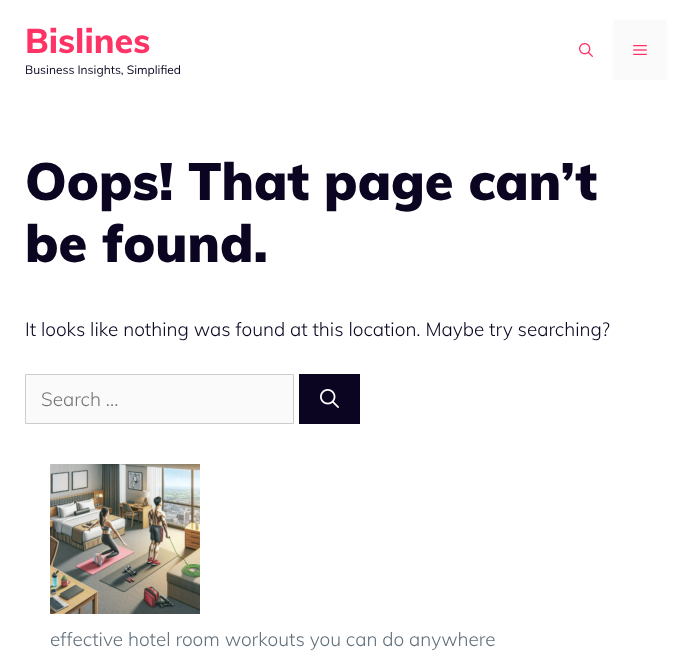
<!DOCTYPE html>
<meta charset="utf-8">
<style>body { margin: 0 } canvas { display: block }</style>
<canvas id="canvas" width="692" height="651"></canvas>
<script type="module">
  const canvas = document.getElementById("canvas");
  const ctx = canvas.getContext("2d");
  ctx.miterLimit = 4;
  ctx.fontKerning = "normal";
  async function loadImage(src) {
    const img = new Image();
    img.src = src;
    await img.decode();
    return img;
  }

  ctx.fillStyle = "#ffffff";
  ctx.fillRect(0, 0, 692, 651);
  ctx.font = "800 34px Muli";
  ctx.fillStyle = "#ff3366";
  ctx.fillText("Bislines", 25, 53);
  ctx.font = "12px Muli";
  ctx.fillStyle = "#0b0521";
  ctx.fillText("Business Insights, Simplified", 25, 74);
  ctx.drawImage(await loadImage("img1.png"), 579, 43, 14, 14);
  ctx.fillStyle = "#fafafa";
  ctx.fillRect(613, 20, 54, 60);
  ctx.drawImage(await loadImage("img2.png"), 633, 45, 14, 10);
  ctx.font = "900 52px Muli";
  ctx.fillStyle = "#0b0521";
  ctx.fillText("Oops! That page can’t", 25, 200);
  ctx.fillText("be found.", 25, 262);
  ctx.font = "300 19px Muli";
  ctx.fillText("It looks like nothing was found at this location. Maybe try searching?", 25, 336);
  ctx.fillStyle = "#fafafa";
  ctx.beginPath();
  ctx.rect(25.5, 374.5, 268, 49);
  ctx.fill();
  ctx.strokeStyle = "#cccccc";
  ctx.stroke();
  ctx.fillStyle = "#757575";
  ctx.fillText("Search …", 41, 406);
  ctx.fillStyle = "#0b0521";
  ctx.fillRect(299, 374, 61, 50);
  ctx.drawImage(await loadImage("img3.png"), 320, 389, 19, 19);
  ctx.drawImage(await loadImage("img4.png"), 50, 464, 150, 150);
  ctx.fillStyle = "#62707c";
  ctx.fillText("effective hotel room workouts you can do anywhere", 50, 646);
</script>
